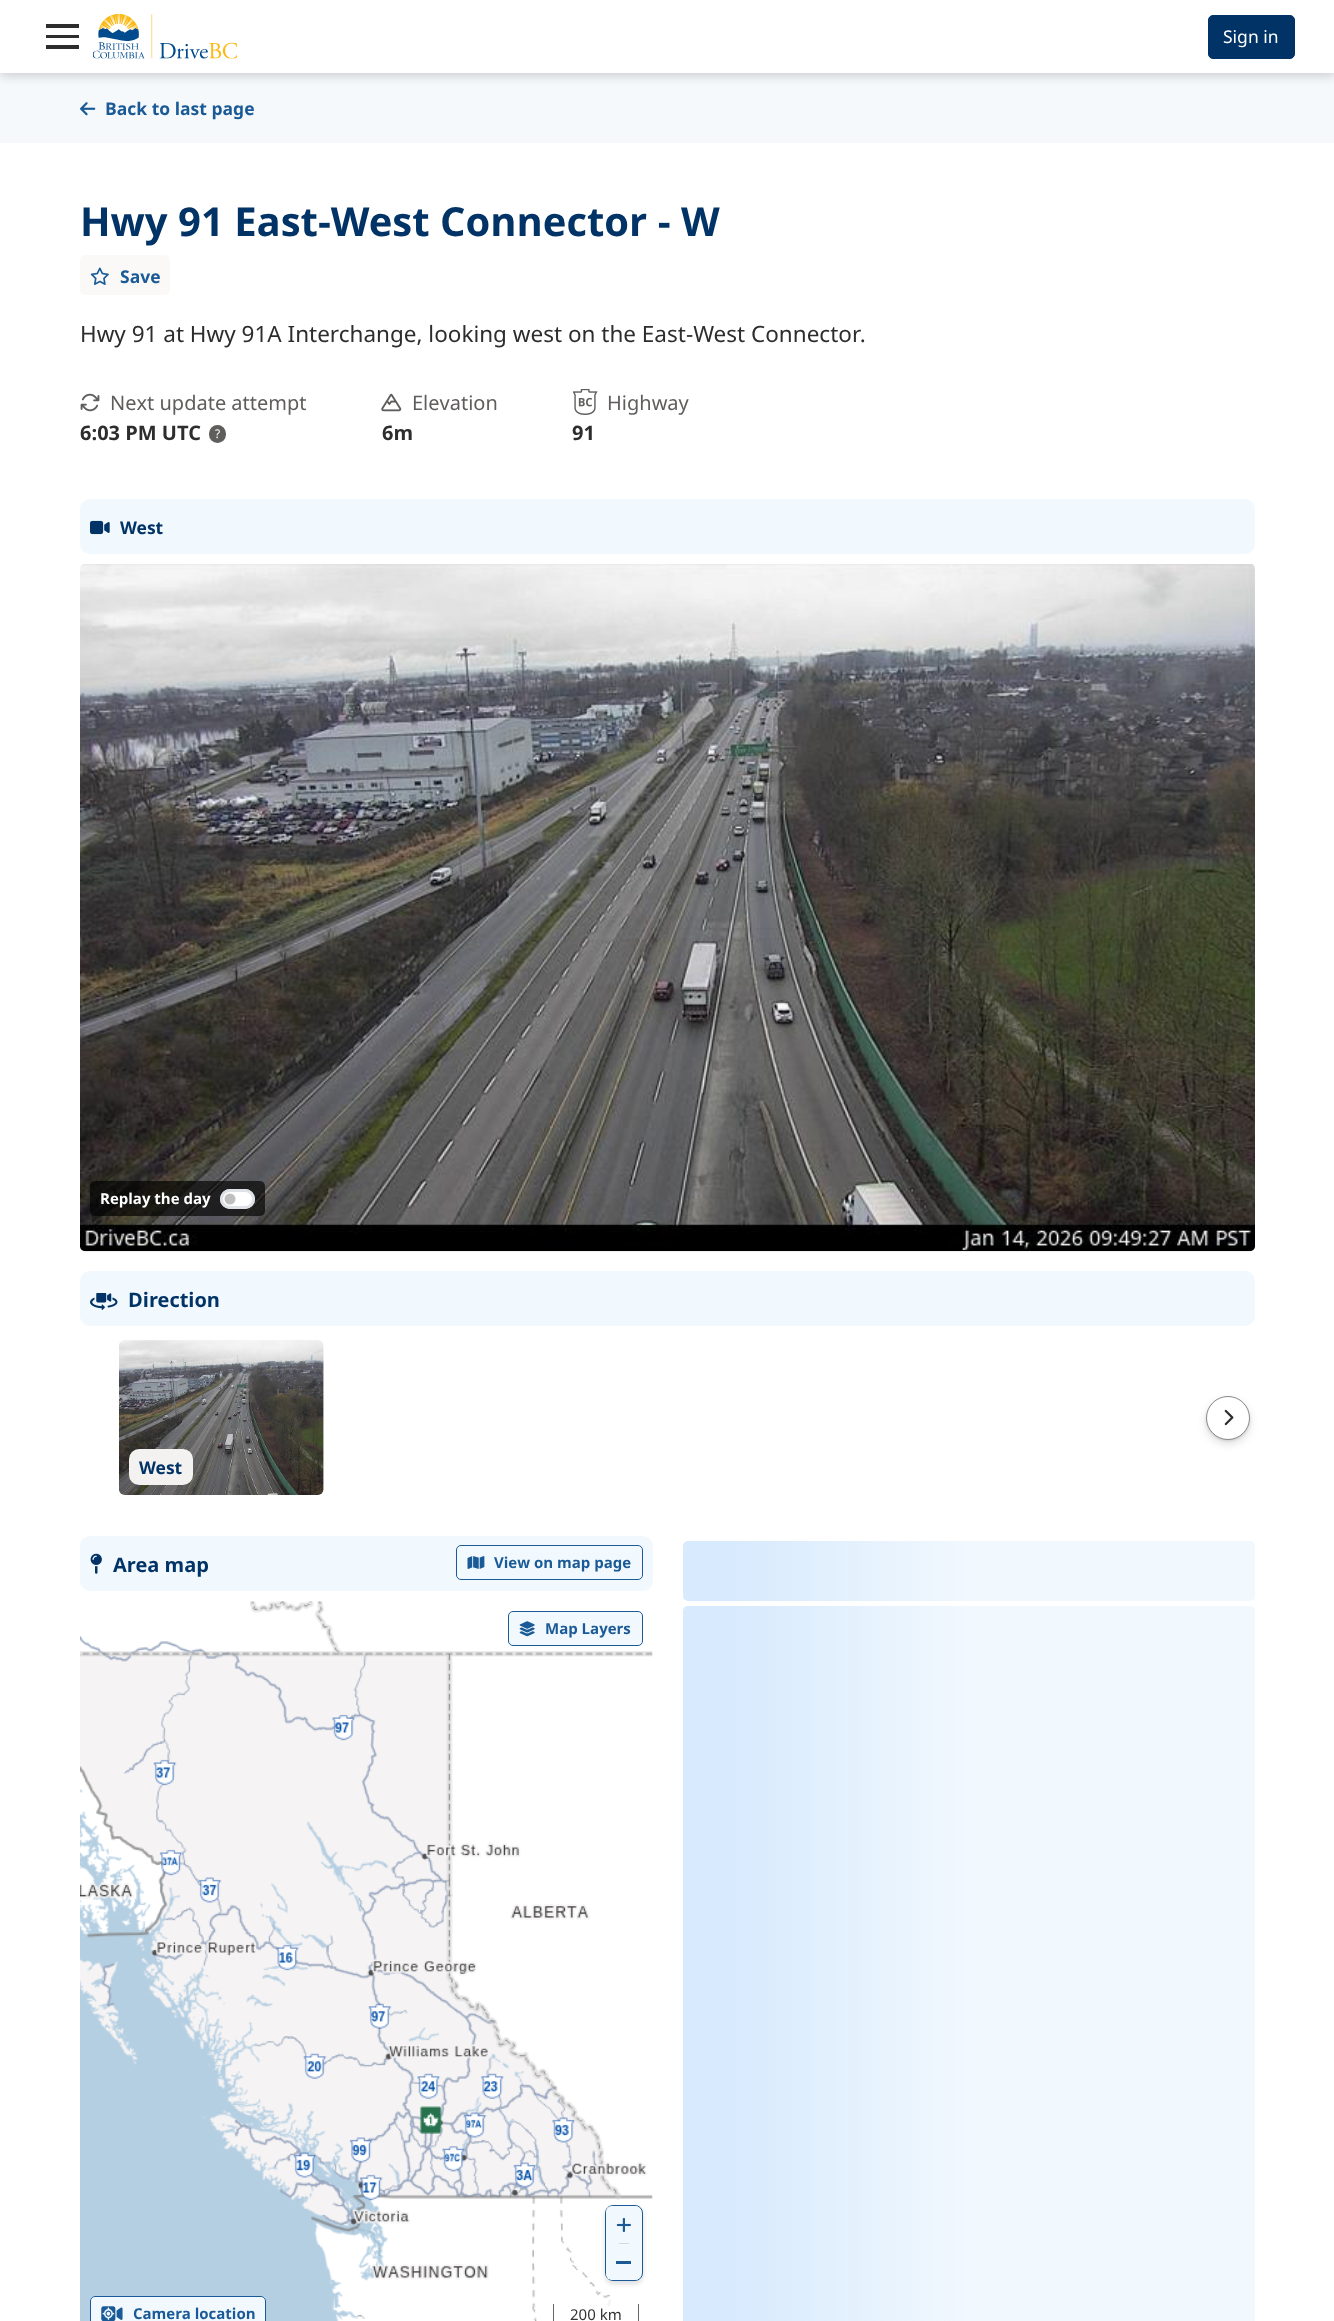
<!DOCTYPE html>
<meta charset="utf-8">
<style>body { margin: 0 } canvas { display: block }</style>
<canvas id="canvas" width="1334" height="2321"></canvas>
<script type="module">
  const canvas = document.getElementById("canvas");
  const ctx = canvas.getContext("2d");
  ctx.miterLimit = 4;
  ctx.fontKerning = "normal";
  async function loadImage(src) {
    const img = new Image();
    img.src = src;
    await img.decode();
    return img;
  }
  let gradient;

  ctx.fillStyle = "#ffffff";
  ctx.fillRect(0, 0, 1334, 2321);
  ctx.fillStyle = "#f6f9fc";
  ctx.fillRect(0, 73, 1334, 70);
  ctx.fillStyle = "rgba(0, 0, 0, 0.2)";
  ctx.filter = "blur(6px)";
  ctx.beginPath();
  ctx.rect(0, 3, 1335, 72);
  ctx.fill();
  ctx.filter = "none";
  ctx.fillStyle = "#ffffff";
  ctx.fillRect(0, 0, 1334, 73);
  ctx.fillStyle = "#2d2d2d";
  ctx.fillRect(46, 24, 33, 4);
  ctx.fillRect(46, 35, 33, 3);
  ctx.fillRect(46, 45, 33, 4);
  ctx.drawImage(await loadImage("img1.png"), 93, 14, 144, 45);
  ctx.fillStyle = "#013366";
  ctx.beginPath();
  ctx.roundRect(1208.5, 15.5, 86, 43, 4.5);
  ctx.fill();
  ctx.strokeStyle = "#013366";
  ctx.stroke();
  ctx.font = "17.5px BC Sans";
  ctx.fillStyle = "#ffffff";
  ctx.fillText("Sign in", 1223, 43);
  ctx.drawImage(await loadImage("img2.png"), 80, 102, 16, 14);
  ctx.font = "bold 17.5px BC Sans";
  ctx.fillStyle = "#1a5a96";
  ctx.fillText("Back to last page", 105, 115);
  ctx.font = "bold 40px BC Sans";
  ctx.fillStyle = "#013366";
  ctx.fillText("Hwy 91 East-West Connector - W", 80, 236);
  ctx.fillStyle = "#faf9f8";
  ctx.beginPath();
  ctx.roundRect(80, 255, 90, 40, 5);
  ctx.fill();
  ctx.drawImage(await loadImage("img3.png"), 90, 267, 19, 18);
  ctx.font = "bold 17.5px BC Sans";
  ctx.fillStyle = "#1a5a96";
  ctx.fillText("Save", 120, 283);
  ctx.font = "22.5px BC Sans";
  ctx.fillStyle = "#2d2d2d";
  ctx.fillText("Hwy 91 at Hwy 91A Interchange, looking west on the East-West Connector.", 80, 342);
  ctx.drawImage(await loadImage("img4.png"), 80, 393, 20, 19);
  ctx.font = "20px BC Sans";
  ctx.fillStyle = "#605e5c";
  ctx.fillText("Next update attempt", 110, 410);
  ctx.font = "bold 20px BC Sans";
  ctx.fillStyle = "#2d2d2d";
  ctx.fillText("6:03 PM UTC", 80, 440);
  ctx.fillStyle = "#605e5c";
  ctx.beginPath();
  ctx.roundRect(209, 425, 17, 18, 8.5);
  ctx.fill();
  ctx.font = "12px BC Sans";
  ctx.fillStyle = "#ffffff";
  ctx.fillText("?", 215, 438);
  ctx.drawImage(await loadImage("img5.png"), 381, 393, 21, 19);
  ctx.font = "20px BC Sans";
  ctx.fillStyle = "#605e5c";
  ctx.fillText("Elevation", 412, 410);
  ctx.font = "bold 20px BC Sans";
  ctx.fillStyle = "#2d2d2d";
  ctx.fillText("6m", 382, 440);
  ctx.drawImage(await loadImage("img6.png"), 573, 389, 25, 26);
  ctx.font = "20px BC Sans";
  ctx.fillStyle = "#605e5c";
  ctx.fillText("Highway", 607, 410);
  ctx.font = "bold 20px BC Sans";
  ctx.fillStyle = "#2d2d2d";
  ctx.fillText("91", 572, 440);
  ctx.fillStyle = "#f1f8fe";
  ctx.beginPath();
  ctx.roundRect(80, 499, 1175, 55, 10);
  ctx.fill();
  ctx.drawImage(await loadImage("img7.png"), 90, 520, 20, 15);
  ctx.font = "bold 17.5px BC Sans";
  ctx.fillStyle = "#013366";
  ctx.fillText("West", 120, 534);
  ctx.drawImage(await loadImage("img8.png"), 80, 564, 1175, 688);
  ctx.fillStyle = "rgba(0, 0, 0, 0.65)";
  ctx.beginPath();
  ctx.roundRect(90, 1181, 175, 35, 5);
  ctx.fill();
  ctx.font = "bold 15px BC Sans";
  ctx.fillStyle = "#ffffff";
  ctx.fillText("Replay the day", 100, 1204);
  ctx.beginPath();
  ctx.roundRect(220, 1189, 35, 20, 10);
  ctx.fill();
  ctx.fillStyle = "#bfbfbf";
  ctx.beginPath();
  ctx.arc(230, 1199, 5.5, 0, Math.PI * 2);
  ctx.fill();
  ctx.beginPath();
  ctx.roundRect(221.5, 1190.5, 32, 17, 8.5);
  ctx.strokeStyle = "#dee2e6";
  ctx.lineWidth = 3;
  ctx.stroke();
  ctx.fillStyle = "#f1f8fe";
  ctx.beginPath();
  ctx.roundRect(80, 1271, 1175, 55, 10);
  ctx.fill();
  ctx.drawImage(await loadImage("img9.png"), 90, 1293, 28, 17);
  ctx.font = "bold 20px BC Sans";
  ctx.fillStyle = "#013366";
  ctx.fillText("Direction", 128, 1307);
  ctx.fillStyle = "rgba(0, 0, 0, 0.1)";
  ctx.filter = "blur(1px)";
  ctx.beginPath();
  ctx.roundRect(1206, 1398, 44, 43, 21.5);
  ctx.fill();
  ctx.filter = "none";
  ctx.fillStyle = "rgba(0, 0, 0, 0.13)";
  ctx.filter = "blur(4.5px)";
  ctx.beginPath();
  ctx.roundRect(1206, 1400, 44, 44, 22);
  ctx.fill();
  ctx.filter = "none";
  ctx.fillStyle = "#ffffff";
  ctx.beginPath();
  ctx.arc(1228, 1418, 21.5, 0, Math.PI * 2);
  ctx.fill();
  ctx.strokeStyle = "#8a8886";
  ctx.lineWidth = 1;
  ctx.stroke();
  ctx.drawImage(await loadImage("img10.png"), 1224, 1409, 10, 17);
  ctx.drawImage(await loadImage("img11.png"), 119, 1340, 205, 155);
  ctx.fillStyle = "#f3f2f1";
  ctx.beginPath();
  ctx.roundRect(129, 1449, 64, 36, 10);
  ctx.fill();
  ctx.font = "bold 17.5px BC Sans";
  ctx.fillStyle = "#013366";
  ctx.fillText("West", 139, 1474);
  ctx.fillStyle = "#f1f8fe";
  ctx.beginPath();
  ctx.roundRect(80, 1536, 573, 55, 10);
  ctx.fill();
  ctx.beginPath();
  ctx.roundRect(456.5, 1545.5, 186, 34, 4.5);
  ctx.strokeStyle = "#1a5a96";
  ctx.stroke();
  ctx.drawImage(await loadImage("img12.png"), 467, 1556, 18, 13);
  ctx.font = "bold 15px BC Sans";
  ctx.fillStyle = "#1a5a96";
  ctx.fillText("View on map page", 494, 1568);
  ctx.drawImage(await loadImage("img16.png"), 80, 1601, 573, 720);
  ctx.fillStyle = "#f1f8fe";
  ctx.beginPath();
  ctx.roundRect(508.5, 1611.5, 134, 34, 4.5);
  ctx.fill();
  ctx.stroke();
  ctx.drawImage(await loadImage("img13.png"), 519, 1621, 16, 16);
  ctx.fillStyle = "#1a5a96";
  ctx.fillText("Map Layers", 545, 1634);
  ctx.fillStyle = "#f1f8fe";
  ctx.beginPath();
  ctx.roundRect(90, 2296, 176, 25, [5, 5, 0, 0]);
  ctx.fill();
  ctx.beginPath();
  ctx.roundRect(90.5, 2296.5, 175, 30, 4.5);
  ctx.stroke();
  ctx.drawImage(await loadImage("img14.png"), 101, 2306, 22, 15);
  ctx.fillStyle = "#1a5a96";
  ctx.fillText("Camera location", 133, 2319);
  ctx.fillStyle = "rgba(0, 0, 0, 0.13)";
  ctx.filter = "blur(2.5px)";
  ctx.beginPath();
  ctx.roundRect(605, 2208, 38, 76, 8);
  ctx.fill();
  ctx.filter = "none";
  ctx.fillStyle = "#f1f8fe";
  ctx.beginPath();
  ctx.roundRect(605.5, 2205.5, 37, 75, 7.5);
  ctx.fill();
  ctx.stroke();
  ctx.beginPath();
  ctx.roundRect(606, 2206, 35, 37, [6, 6, 0, 0]);
  ctx.fill();
  ctx.drawImage(await loadImage("img15.png"), 616, 2217, 15, 16);
  ctx.fillStyle = "#d8d8d8";
  ctx.fillRect(619, 2243, 10, 1);
  ctx.fillStyle = "#f1f8fe";
  ctx.beginPath();
  ctx.roundRect(606, 2244, 35, 36, [0, 0, 6, 6]);
  ctx.fill();
  ctx.fillStyle = "#1a5a96";
  ctx.fillRect(616, 2261, 15, 3);
  ctx.fillStyle = "rgba(255, 255, 255, 0.75)";
  ctx.beginPath();
  ctx.roundRect(549, 2300, 94, 21, [5, 5, 0, 0]);
  ctx.fill();
  ctx.fillStyle = "#666666";
  ctx.fillRect(638, 2304, 1, 17);
  ctx.fillRect(553, 2304, 1, 17);
  ctx.font = "15px BC Sans";
  ctx.fillStyle = "#333333";
  ctx.fillText("200 km", 570, 2320);
  ctx.drawImage(await loadImage("img17.png"), 90, 1553, 12, 21);
  ctx.font = "bold 20px BC Sans";
  ctx.fillStyle = "#013366";
  ctx.fillText("Area map", 113, 1572);
  gradient = ctx.createLinearGradient(683, 1571, 1255, 1571);
  gradient.addColorStop(0.1, "#d8eafd");
  gradient.addColorStop(0.5, "#f1f8fe");
  gradient.addColorStop(0.75, "#f1f8fe");
  ctx.fillStyle = gradient;
  ctx.beginPath();
  ctx.roundRect(683, 1541, 572, 60, 5);
  ctx.fill();
  gradient = ctx.createLinearGradient(683, 1981, 1255, 1981);
  gradient.addColorStop(0.1, "#d8eafd");
  gradient.addColorStop(0.5, "#f1f8fe");
  gradient.addColorStop(0.75, "#f1f8fe");
  ctx.fillStyle = gradient;
  ctx.beginPath();
  ctx.roundRect(683, 1606, 572, 715, [5, 5, 0, 0]);
  ctx.fill();
</script>
